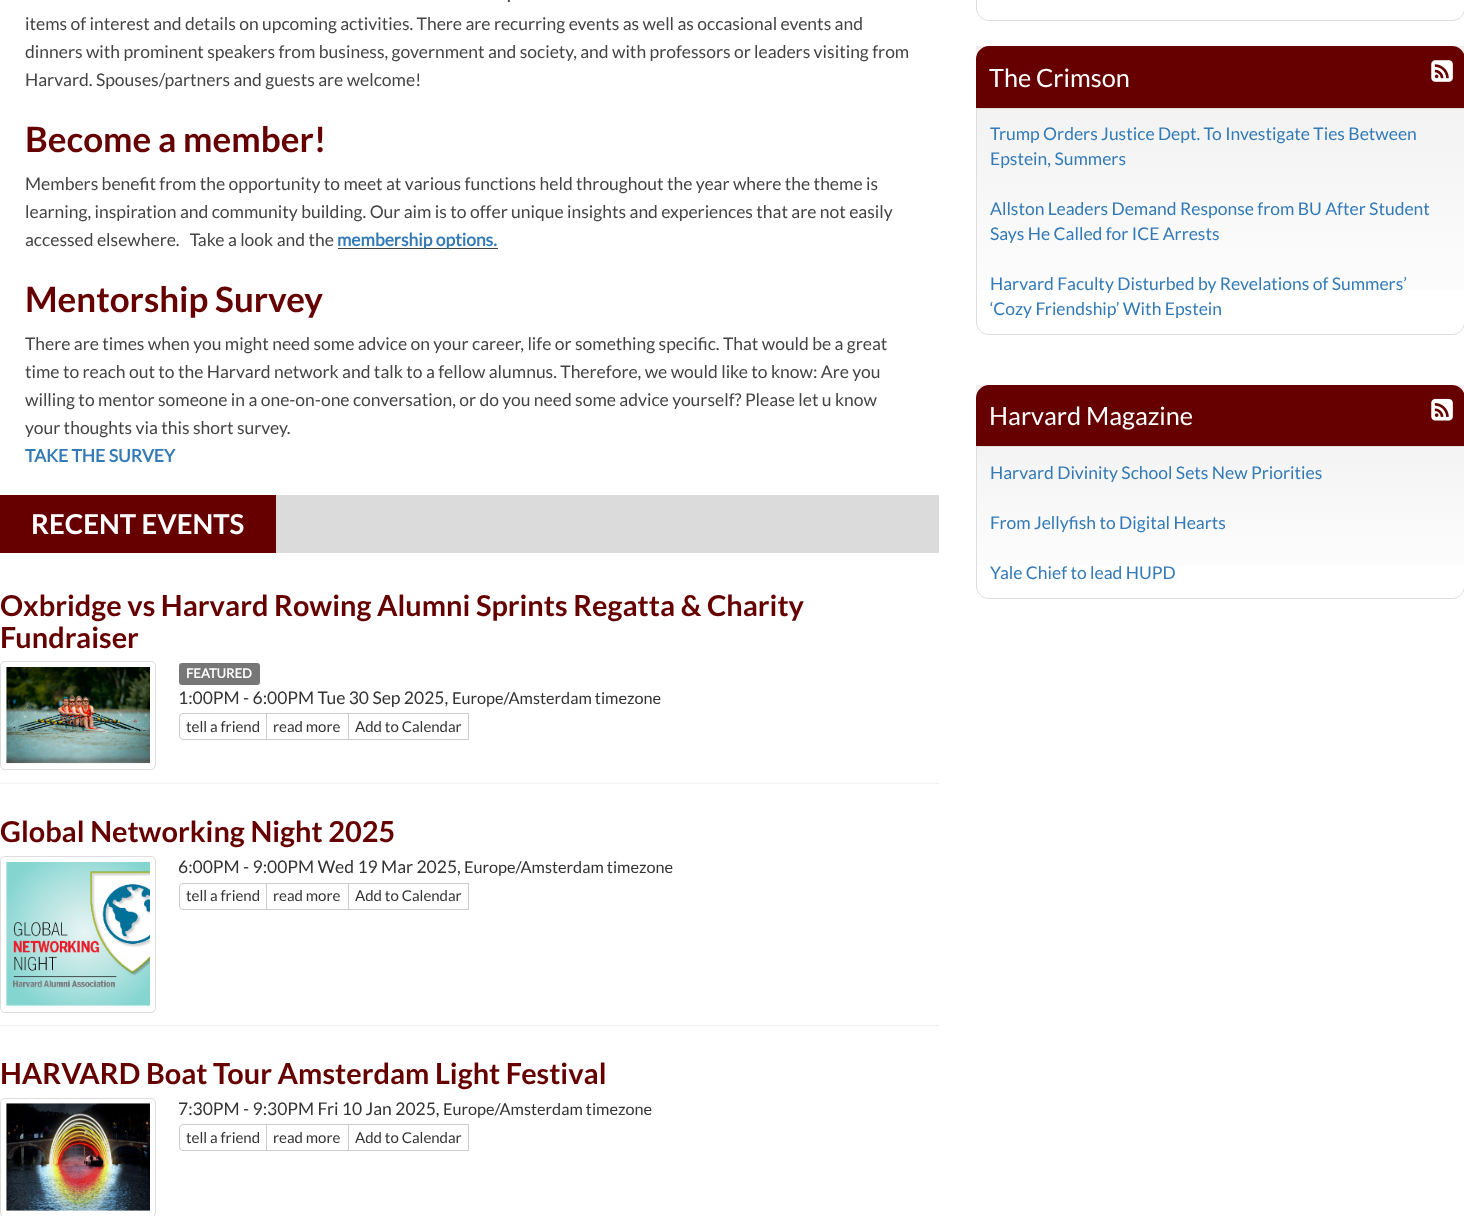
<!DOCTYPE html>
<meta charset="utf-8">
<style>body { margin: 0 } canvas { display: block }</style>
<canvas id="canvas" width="1464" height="1216"></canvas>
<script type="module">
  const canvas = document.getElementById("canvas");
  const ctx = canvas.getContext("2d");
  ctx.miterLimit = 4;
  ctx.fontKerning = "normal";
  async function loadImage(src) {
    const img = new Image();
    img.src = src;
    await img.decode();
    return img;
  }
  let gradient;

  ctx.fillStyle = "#ffffff";
  ctx.fillRect(0, 0, 1464, 1216);
  ctx.font = "17.5px Lato";
  ctx.fillStyle = "#444444";
  ctx.fillText(".", 507, 2);
  ctx.fillText("items of interest and details on upcoming activities. There are recurring events as well as occasional events and", 25, 30);
  ctx.fillText("dinners with prominent speakers from business, government and society, and with professors or leaders visiting from", 25, 58);
  ctx.fillText("Harvard. Spouses/partners and guests are welcome!", 25, 86);
  ctx.font = "bold 35px Lato";
  ctx.fillStyle = "#660000";
  ctx.fillText("Become a member!", 25, 152);
  ctx.font = "17.5px Lato";
  ctx.fillStyle = "#444444";
  ctx.fillText("Members benefit from the opportunity to meet at various functions held throughout the year where the theme is", 25, 190);
  ctx.fillText("learning, inspiration and community building. Our aim is to offer unique insights and experiences that are not easily", 25, 218);
  ctx.fillText("accessed elsewhere.   Take a look and the", 25, 246);
  ctx.fillRect(338, 248, 160, 1);
  ctx.font = "bold 17.5px 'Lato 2'";
  ctx.fillStyle = "#337ab7";
  ctx.fillText("membership options.", 337, 246);
  ctx.font = "bold 35px Lato";
  ctx.fillStyle = "#660000";
  ctx.fillText("Mentorship Survey", 25, 312);
  ctx.font = "17.5px Lato";
  ctx.fillStyle = "#444444";
  ctx.fillText("There are times when you might need some advice on your career, life or something specific. That would be a great", 25, 350);
  ctx.fillText("time to reach out to the Harvard network and talk to a fellow alumnus. Therefore, we would like to know: Are you", 25, 378);
  ctx.fillText("willing to mentor someone in a one-on-one conversation, or do you need some advice yourself? Please let u know", 25, 406);
  ctx.fillText("your thoughts via this short survey.", 25, 434);
  ctx.font = "bold 17.5px 'Lato 2'";
  ctx.fillStyle = "#337ab7";
  ctx.fillText("TAKE THE SURVEY", 25, 462);
  ctx.fillStyle = "#dbdbdb";
  ctx.fillRect(276, 495, 663, 58);
  ctx.fillStyle = "#660000";
  ctx.fillRect(0, 495, 276, 58);
  ctx.font = "bold 27.5px Lato";
  ctx.fillStyle = "#ffffff";
  ctx.fillText("RECENT EVENTS", 31, 534);
  ctx.fillStyle = "#efefef";
  ctx.fillRect(0, 783, 939, 1);
  ctx.font = "bold 28.9px Lato";
  ctx.fillStyle = "#660000";
  ctx.fillText("Oxbridge vs Harvard Rowing Alumni Sprints Regatta & Charity", 0, 616);
  ctx.fillText("Fundraiser", 0, 648);
  ctx.beginPath();
  ctx.roundRect(0.5, 661.5, 155, 108, 4.5);
  ctx.strokeStyle = "#dddddd";
  ctx.stroke();
  ctx.drawImage(await loadImage("img1.png"), 6, 667, 144, 97);
  ctx.fillStyle = "#777777";
  ctx.beginPath();
  ctx.roundRect(179, 663, 81, 22, 3);
  ctx.fill();
  ctx.font = "bold 13px 'Lato 2'";
  ctx.fillStyle = "#ffffff";
  ctx.fillText("FEATURED", 186, 678);
  ctx.font = "17.5px Lato";
  ctx.fillStyle = "#333333";
  ctx.fillText("1:00PM - 6:00PM Tue 30 Sep 2025,", 178, 704);
  ctx.font = "16.25px Lato";
  ctx.fillText("Europe/Amsterdam timezone", 452, 704);
  ctx.beginPath();
  ctx.roundRect(179.5, 713.5, 88, 26, [3.5, 0, 0, 3.5]);
  ctx.strokeStyle = "#cccccc";
  ctx.stroke();
  ctx.font = "15px Lato";
  ctx.fillText("tell a friend", 186, 732);
  ctx.fillStyle = "#ffffff";
  ctx.fillRect(267, 714, 1, 25);
  ctx.strokeRect(266.5, 713.5, 82, 26);
  ctx.fillStyle = "#333333";
  ctx.fillText("read more", 273, 732);
  ctx.strokeRect(348.5, 713.5, 120, 26);
  ctx.fillText("Add to Calendar", 355, 732);
  ctx.fillStyle = "#efefef";
  ctx.fillRect(0, 1025, 939, 1);
  ctx.font = "bold 28.9px Lato";
  ctx.fillStyle = "#660000";
  ctx.fillText("Global Networking Night 2025", 0, 842);
  ctx.beginPath();
  ctx.roundRect(0.5, 856.5, 155, 156, 4.5);
  ctx.strokeStyle = "#dddddd";
  ctx.stroke();
  ctx.drawImage(await loadImage("img2.png"), 6, 862, 144, 144);
  ctx.font = "17.5px Lato";
  ctx.fillStyle = "#333333";
  ctx.fillText("6:00PM - 9:00PM Wed 19 Mar 2025,", 178, 873);
  ctx.font = "16.25px Lato";
  ctx.fillText("Europe/Amsterdam timezone", 464, 873);
  ctx.beginPath();
  ctx.roundRect(179.5, 883.5, 88, 26, [3.5, 0, 0, 3.5]);
  ctx.strokeStyle = "#cccccc";
  ctx.stroke();
  ctx.font = "15px Lato";
  ctx.fillText("tell a friend", 186, 901);
  ctx.fillStyle = "#ffffff";
  ctx.fillRect(267, 884, 1, 25);
  ctx.strokeRect(266.5, 883.5, 82, 26);
  ctx.fillStyle = "#333333";
  ctx.fillText("read more", 273, 901);
  ctx.strokeRect(348.5, 883.5, 120, 26);
  ctx.fillText("Add to Calendar", 355, 901);
  ctx.font = "bold 28.9px Lato";
  ctx.fillStyle = "#660000";
  ctx.fillText("HARVARD Boat Tour Amsterdam Light Festival", 0, 1084);
  ctx.beginPath();
  ctx.roundRect(0.5, 1098.5, 155, 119, 4.5);
  ctx.strokeStyle = "#dddddd";
  ctx.stroke();
  ctx.drawImage(await loadImage("img3.png"), 6, 1103, 144, 108);
  ctx.font = "17.5px Lato";
  ctx.fillStyle = "#333333";
  ctx.fillText("7:30PM - 9:30PM Fri 10 Jan 2025,", 178, 1115);
  ctx.font = "16.25px Lato";
  ctx.fillText("Europe/Amsterdam timezone", 443, 1115);
  ctx.beginPath();
  ctx.roundRect(179.5, 1124.5, 88, 26, [3.5, 0, 0, 3.5]);
  ctx.strokeStyle = "#cccccc";
  ctx.stroke();
  ctx.font = "15px Lato";
  ctx.fillText("tell a friend", 186, 1143);
  ctx.fillStyle = "#ffffff";
  ctx.fillRect(267, 1125, 1, 25);
  ctx.strokeRect(266.5, 1124.5, 82, 26);
  ctx.fillStyle = "#333333";
  ctx.fillText("read more", 273, 1143);
  ctx.strokeRect(348.5, 1124.5, 120, 26);
  ctx.fillText("Add to Calendar", 355, 1143);
  ctx.beginPath();
  ctx.moveTo(976.5, -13.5);
  ctx.lineTo(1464.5, -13.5);
  ctx.lineTo(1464.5, 8);
  ctx.bezierCurveTo(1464.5, 15, 1459, 20.5, 1452, 20.5);
  ctx.lineTo(989, 20.5);
  ctx.bezierCurveTo(982, 20.5, 976.5, 15, 976.5, 8);
  ctx.closePath();
  ctx.strokeStyle = "#dedede";
  ctx.stroke();
  gradient = ctx.createLinearGradient(1221, 46, 1221, 335);
  gradient.addColorStop(0, "#efefef");
  gradient.addColorStop(1, "#ffffff");
  gradient.addColorStop(1, "#7db9e8");
  ctx.fillStyle = gradient;
  ctx.fillRect(976, 46, 488, 244);
  ctx.fillStyle = "#660000";
  ctx.beginPath();
  ctx.moveTo(989, 46);
  ctx.lineTo(1452, 46);
  ctx.bezierCurveTo(1459, 46, 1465, 52, 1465, 59);
  ctx.lineTo(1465, 108);
  ctx.lineTo(976, 108);
  ctx.lineTo(976, 59);
  ctx.bezierCurveTo(976, 52, 982, 46, 989, 46);
  ctx.closePath();
  ctx.fill();
  ctx.font = "25.25px Lato";
  ctx.fillStyle = "#ffffff";
  ctx.fillText("The Crimson", 989, 87);
  ctx.drawImage(await loadImage("img4.png"), 1431, 60, 22, 22);
  ctx.beginPath();
  ctx.moveTo(976.5, 108.5);
  ctx.lineTo(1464.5, 108.5);
  ctx.lineTo(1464.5, 322);
  ctx.bezierCurveTo(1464.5, 329, 1459, 334.5, 1452, 334.5);
  ctx.lineTo(989, 334.5);
  ctx.bezierCurveTo(982, 334.5, 976.5, 329, 976.5, 322);
  ctx.closePath();
  ctx.stroke();
  ctx.font = "17.5px Lato";
  ctx.fillStyle = "#337ab7";
  ctx.fillText("Trump Orders Justice Dept. To Investigate Ties Between", 990, 140);
  ctx.fillText("Epstein, Summers", 990, 165);
  ctx.fillText("Allston Leaders Demand Response from BU After Student", 990, 215);
  ctx.fillText("Says He Called for ICE Arrests", 990, 240);
  ctx.fillText("Harvard Faculty Disturbed by Revelations of Summers’", 990, 290);
  ctx.fillText("‘Cozy Friendship’ With Epstein", 990, 315);
  gradient = ctx.createLinearGradient(1221, 385, 1221, 599);
  gradient.addColorStop(0, "#efefef");
  gradient.addColorStop(1, "#ffffff");
  gradient.addColorStop(1, "#7db9e8");
  ctx.fillStyle = gradient;
  ctx.fillRect(976, 385, 488, 181);
  ctx.fillStyle = "#660000";
  ctx.beginPath();
  ctx.moveTo(989, 385);
  ctx.lineTo(1452, 385);
  ctx.bezierCurveTo(1459, 385, 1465, 391, 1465, 398);
  ctx.lineTo(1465, 446);
  ctx.lineTo(976, 446);
  ctx.lineTo(976, 398);
  ctx.bezierCurveTo(976, 391, 982, 385, 989, 385);
  ctx.closePath();
  ctx.fill();
  ctx.font = "25.25px Lato";
  ctx.fillStyle = "#ffffff";
  ctx.fillText("Harvard Magazine", 989, 425);
  ctx.drawImage(await loadImage("img5.png"), 1431, 398, 22, 23);
  ctx.beginPath();
  ctx.moveTo(976.5, 446.5);
  ctx.lineTo(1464.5, 446.5);
  ctx.lineTo(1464.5, 586);
  ctx.bezierCurveTo(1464.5, 593, 1459, 598.5, 1452, 598.5);
  ctx.lineTo(989, 598.5);
  ctx.bezierCurveTo(982, 598.5, 976.5, 593, 976.5, 586);
  ctx.closePath();
  ctx.stroke();
  ctx.font = "17.5px Lato";
  ctx.fillStyle = "#337ab7";
  ctx.fillText("Harvard Divinity School Sets New Priorities", 990, 479);
  ctx.fillText("From Jellyfish to Digital Hearts", 990, 529);
  ctx.fillText("Yale Chief to lead HUPD", 990, 579);
</script>
